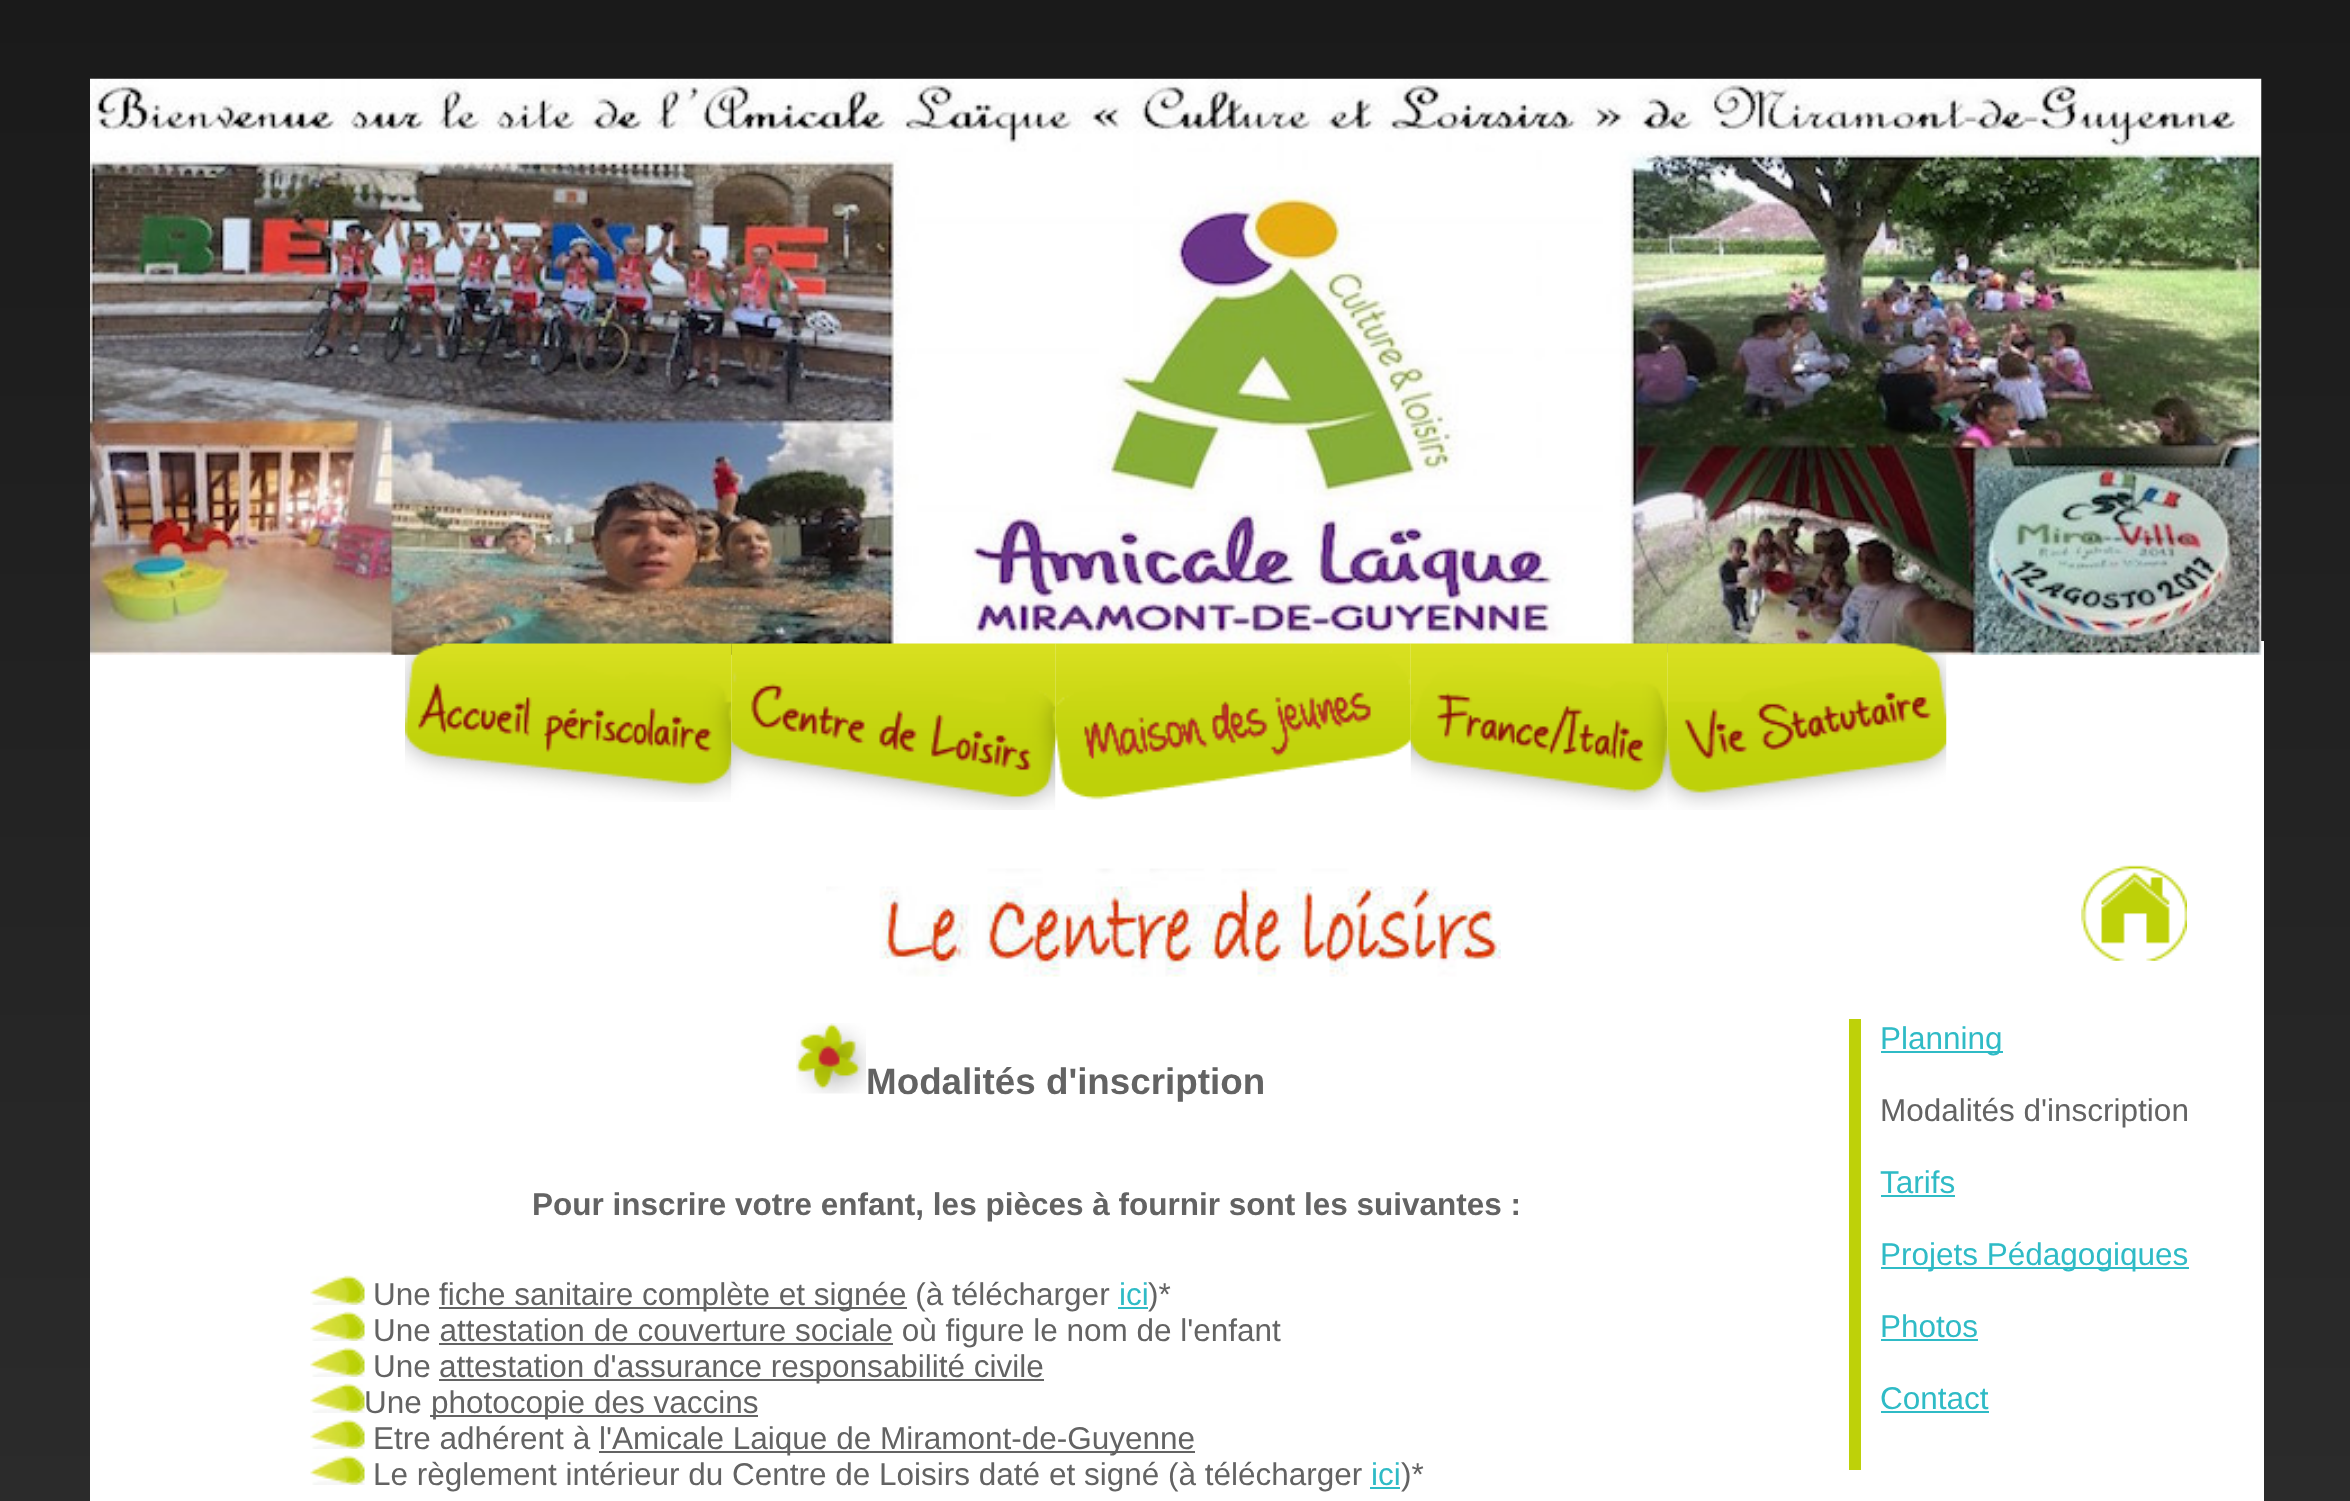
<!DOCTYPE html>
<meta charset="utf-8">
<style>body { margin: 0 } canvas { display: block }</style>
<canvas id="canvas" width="2350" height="1501"></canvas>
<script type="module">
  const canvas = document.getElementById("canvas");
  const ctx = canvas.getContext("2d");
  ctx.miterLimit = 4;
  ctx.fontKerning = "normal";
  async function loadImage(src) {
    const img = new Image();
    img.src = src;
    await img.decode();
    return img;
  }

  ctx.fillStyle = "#ffffff";
  ctx.fillRect(0, 0, 2350, 1501);
  ctx.drawImage(await loadImage("img1.png"), 0, 0, 2350, 1501);
  ctx.fillRect(90, 641, 2174, 860);
  ctx.drawImage(await loadImage("img2.png"), 90, 78, 2172, 577);
  ctx.drawImage(await loadImage("img3.png"), 405, 643, 327, 159);
  ctx.drawImage(await loadImage("img4.png"), 731, 643, 325, 167);
  ctx.drawImage(await loadImage("img5.png"), 1055, 643, 356, 157);
  ctx.drawImage(await loadImage("img6.png"), 1410, 643, 258, 167);
  ctx.drawImage(await loadImage("img7.png"), 1667, 642, 280, 168);
  ctx.drawImage(await loadImage("img8.png"), 826, 868, 675, 109);
  ctx.drawImage(await loadImage("img9.png"), 2081, 865, 106, 96);
  ctx.drawImage(await loadImage("img10.png"), 796, 1023, 70, 71);
  ctx.font = "bold 36.8px Liberation Sans";
  ctx.fillStyle = "#636363";
  ctx.fillText("Modalités d'inscription", 866, 1094);
  ctx.font = "bold 31.5px Liberation Sans";
  ctx.fillText("Pour inscrire votre enfant, les pièces à fournir sont les suivantes :", 532, 1215);
  ctx.drawImage(await loadImage("img11.png"), 310, 1275, 55, 30);
  ctx.font = "31.5px Liberation Sans";
  ctx.fillText("Une", 373, 1305);
  ctx.fillRect(439, 1307, 468, 2);
  ctx.fillText("fiche sanitaire complète et signée (à télécharger", 439, 1305);
  ctx.fillStyle = "#2fbbc6";
  ctx.fillText("ici", 1119, 1305);
  ctx.fillRect(1118, 1307, 30, 2);
  ctx.fillStyle = "#636363";
  ctx.fillText(")*", 1148, 1305);
  ctx.drawImage(await loadImage("img11.png"), 310, 1311, 55, 30);
  ctx.fillText("Une attestation de couverture sociale où figure le nom de l'enfant", 373, 1341);
  ctx.fillRect(439, 1343, 454, 2);
  ctx.drawImage(await loadImage("img11.png"), 310, 1347, 55, 30);
  ctx.fillText("Une", 373, 1377);
  ctx.fillRect(439, 1379, 605, 2);
  ctx.fillText("attestation d'assurance responsabilité civile", 439, 1377);
  ctx.drawImage(await loadImage("img11.png"), 310, 1383, 55, 30);
  ctx.fillText("Une", 364, 1413);
  ctx.fillRect(430, 1415, 328, 2);
  ctx.fillText("photocopie des vaccins", 431, 1413);
  ctx.drawImage(await loadImage("img11.png"), 310, 1419, 55, 30);
  ctx.fillText("Etre adhérent à", 373, 1449);
  ctx.fillRect(599, 1451, 596, 2);
  ctx.fillText("l'Amicale Laique de Miramont-de-Guyenne", 599, 1449);
  ctx.drawImage(await loadImage("img11.png"), 310, 1455, 55, 30);
  ctx.fillText("Le règlement intérieur du Centre de Loisirs daté et signé (à télécharger", 373, 1485);
  ctx.fillStyle = "#2fbbc6";
  ctx.fillText("ici", 1371, 1485);
  ctx.fillRect(1370, 1487, 30, 2);
  ctx.fillStyle = "#636363";
  ctx.fillText(")*", 1401, 1485);
  ctx.fillStyle = "#bed109";
  ctx.fillRect(1849, 1019, 12, 451);
  ctx.fillStyle = "#2fbbc6";
  ctx.fillRect(1881, 1051, 122, 2);
  ctx.fillText("Planning", 1880, 1049);
  ctx.fillStyle = "#636363";
  ctx.fillText("Modalités d'inscription", 1880, 1121);
  ctx.fillStyle = "#2fbbc6";
  ctx.fillText("Tarifs", 1880, 1193);
  ctx.fillRect(1881, 1195, 74, 2);
  ctx.fillRect(1881, 1267, 308, 2);
  ctx.fillText("Projets Pédagogiques", 1880, 1265);
  ctx.fillText("Photos", 1880, 1337);
  ctx.fillRect(1881, 1339, 97, 2);
  ctx.fillText("Contact", 1880, 1409);
  ctx.fillRect(1881, 1411, 108, 2);
</script>
